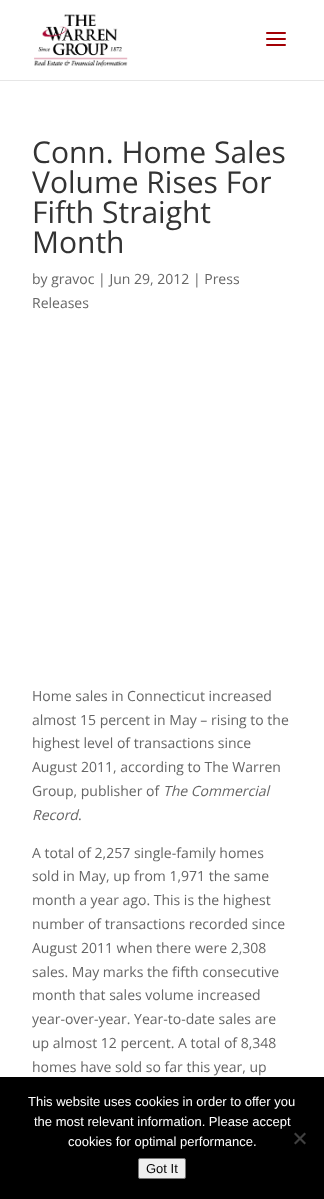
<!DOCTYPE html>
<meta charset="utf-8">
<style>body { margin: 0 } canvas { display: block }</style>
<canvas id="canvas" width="324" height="1199"></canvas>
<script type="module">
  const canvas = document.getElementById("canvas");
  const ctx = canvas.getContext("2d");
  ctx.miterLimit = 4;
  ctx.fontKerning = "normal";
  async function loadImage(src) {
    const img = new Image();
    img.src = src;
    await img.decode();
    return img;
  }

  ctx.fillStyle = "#ffffff";
  ctx.fillRect(0, 0, 324, 1199);
  ctx.fillStyle = "#e6e6e6";
  ctx.fillRect(0, 80, 324, 1);
  ctx.drawImage(await loadImage("img1.png"), 34, 14, 94, 53);
  ctx.drawImage(await loadImage("img2.png"), 266, 32, 20, 14);
  ctx.font = "30px Open Sans";
  ctx.fillStyle = "#333333";
  ctx.fillText("Conn. Home Sales", 32, 163);
  ctx.fillText("Volume Rises For", 32, 193);
  ctx.fillText("Fifth Straight", 32, 223);
  ctx.fillText("Month", 32, 253);
  ctx.font = "14px Open Sans";
  ctx.fillStyle = "#666666";
  ctx.fillText("by gravoc | Jun 29, 2012 | Press", 32, 284);
  ctx.fillText("Releases", 32, 308);
  ctx.fillText("Home sales in Connecticut increased", 32, 701);
  ctx.fillText("almost 15 percent in May – rising to the", 32, 725);
  ctx.fillText("highest level of transactions since", 32, 748);
  ctx.fillText("August 2011, according to The Warren", 32, 772);
  ctx.fillText("Group, publisher of", 32, 796);
  ctx.font = "italic 14px Open Sans";
  ctx.fillText("The Commercial", 163, 796);
  ctx.fillText("Record", 32, 820);
  ctx.font = "14px Open Sans";
  ctx.fillText(".", 78, 820);
  ctx.fillText("A total of 2,257 single-family homes", 32, 858);
  ctx.fillText("sold in May, up from 1,971 the same", 32, 881);
  ctx.fillText("month a year ago. This is the highest", 32, 905);
  ctx.fillText("number of transactions recorded since", 32, 929);
  ctx.fillText("August 2011 when there were 2,308", 32, 953);
  ctx.fillText("sales. May marks the fifth consecutive", 32, 977);
  ctx.fillText("month that sales volume increased", 32, 1000);
  ctx.fillText("year-over-year. Year-to-date sales are", 32, 1024);
  ctx.fillText("up almost 12 percent. A total of 8,348", 32, 1048);
  ctx.fillText("homes have sold so far this year, up", 32, 1072);
  ctx.fillStyle = "#000000";
  ctx.fillRect(0, 1077, 324, 122);
  ctx.font = "13px Liberation Sans";
  ctx.fillStyle = "#ffffff";
  ctx.fillText("This website uses cookies in order to offer you", 28, 1106);
  ctx.fillText("the most relevant information. Please accept", 34, 1126);
  ctx.fillText("cookies for optimal performance.", 68, 1146);
  ctx.fillStyle = "#404040";
  ctx.beginPath();
  ctx.moveTo(304.5, 1132.5);
  ctx.lineTo(306, 1134);
  ctx.lineTo(295.5, 1144.5);
  ctx.lineTo(294, 1143);
  ctx.closePath();
  ctx.fill();
  ctx.beginPath();
  ctx.moveTo(294, 1134);
  ctx.lineTo(295.5, 1132.5);
  ctx.lineTo(306, 1143);
  ctx.lineTo(304.5, 1144.5);
  ctx.closePath();
  ctx.fill();
  ctx.fillStyle = "#efefef";
  ctx.beginPath();
  ctx.roundRect(138.5, 1158.5, 47, 20, 1.5);
  ctx.fill();
  ctx.strokeStyle = "#767676";
  ctx.stroke();
  ctx.fillStyle = "#000000";
  ctx.fillText("Got It", 146, 1173);
</script>
